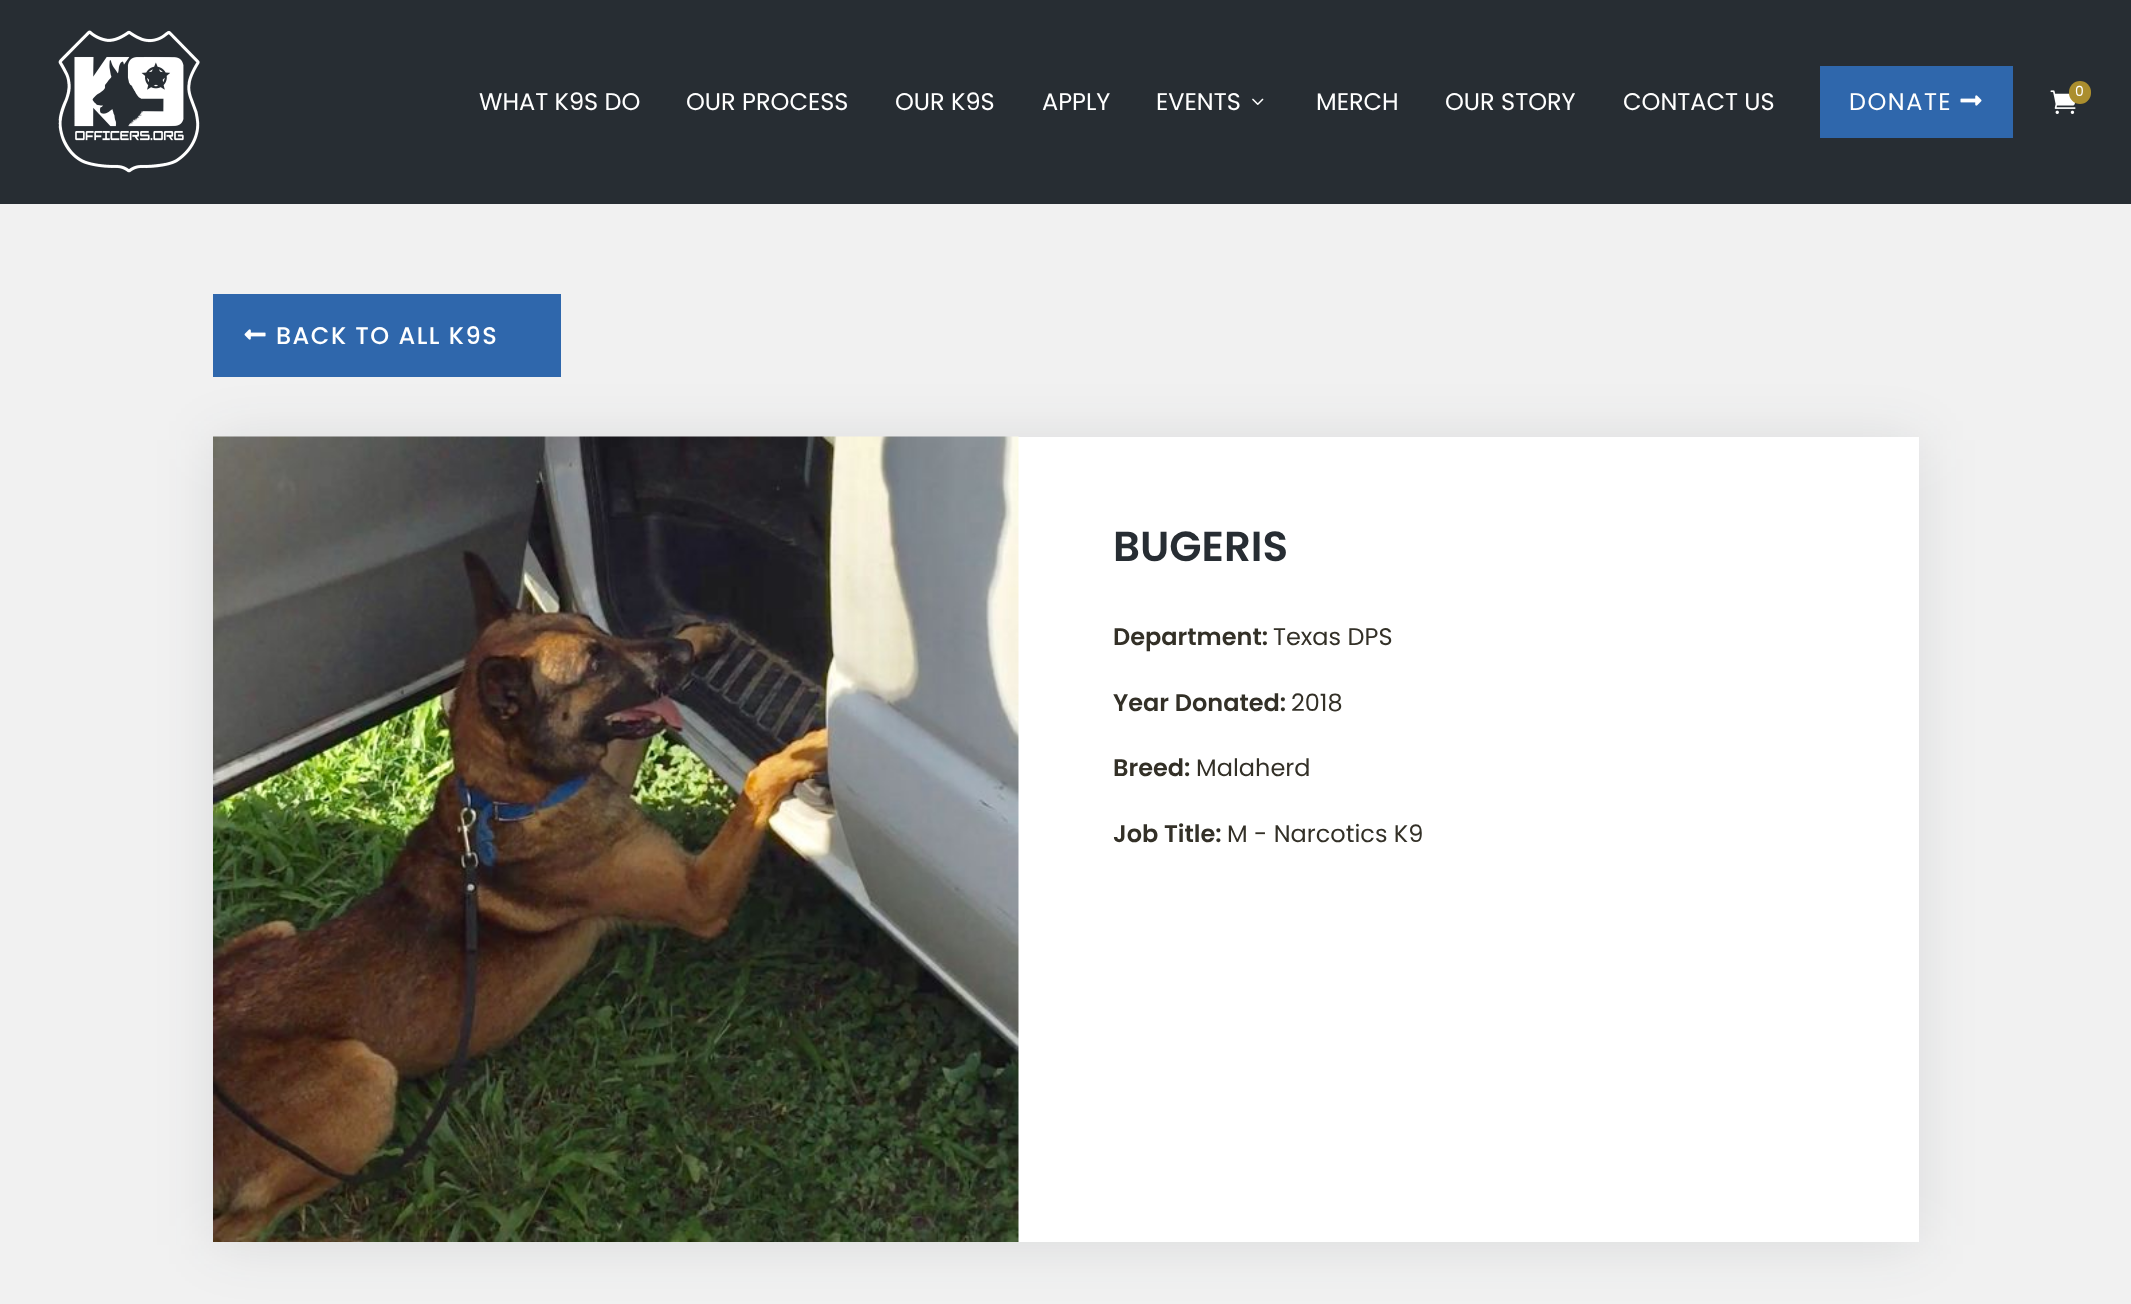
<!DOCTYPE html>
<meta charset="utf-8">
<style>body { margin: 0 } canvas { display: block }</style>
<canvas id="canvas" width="2131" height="1304"></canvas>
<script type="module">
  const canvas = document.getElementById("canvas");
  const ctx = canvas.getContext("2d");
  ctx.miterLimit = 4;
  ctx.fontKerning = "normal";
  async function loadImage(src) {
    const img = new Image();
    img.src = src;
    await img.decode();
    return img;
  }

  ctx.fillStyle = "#f1f1f1";
  ctx.fillRect(0, 0, 2131, 1304);
  ctx.fillStyle = "#272d33";
  ctx.fillRect(0, 0, 2131, 204);
  ctx.drawImage(await loadImage("img1.png"), 58, 30, 142, 143);
  ctx.drawImage(await loadImage("img2.png"), 2050, 90, 26, 24);
  ctx.fillStyle = "#ab8e2e";
  ctx.beginPath();
  ctx.roundRect(2069, 81, 22, 23, 11);
  ctx.fill();
  ctx.font = "14px Poppins";
  ctx.fillStyle = "#ffffff";
  ctx.fillText("0", 2075, 96);
  ctx.font = "24px Poppins";
  ctx.fillText("WHAT K9S DO", 479, 110);
  ctx.fillText("OUR PROCESS", 686, 110);
  ctx.fillText("OUR K9S", 895, 110);
  ctx.fillText("APPLY", 1042, 110);
  ctx.fillText("EVENTS", 1156, 110);
  ctx.drawImage(await loadImage("img3.png"), 1252, 98, 12, 7);
  ctx.fillText("MERCH", 1316, 110);
  ctx.fillText("OUR STORY", 1445, 110);
  ctx.fillText("CONTACT US", 1623, 110);
  ctx.fillStyle = "#2f67ac";
  ctx.fillRect(1820, 66, 193, 72);
  ctx.letterSpacing = "1.5px";
  ctx.fillStyle = "#ffffff";
  ctx.fillText("DONATE", 1849, 110);
  ctx.drawImage(await loadImage("img4.png"), 1960, 95, 22, 11);
  ctx.fillStyle = "rgba(39, 45, 51, 0.11)";
  ctx.filter = "blur(28.5px)";
  ctx.beginPath();
  ctx.rect(213, 440, 1706, 805);
  ctx.fill();
  ctx.filter = "none";
  ctx.fillStyle = "#2f67ac";
  ctx.fillRect(213, 294, 348, 83);
  ctx.drawImage(await loadImage("img5.png"), 244, 329, 22, 11);
  ctx.font = "500 24px Poppins";
  ctx.fillStyle = "#ffffff";
  ctx.fillText("BACK TO ALL K9S", 276, 344);
  ctx.fillRect(1018, 437, 901, 805);
  ctx.drawImage(await loadImage("img6.png"), 213, 436, 806, 806);
  ctx.letterSpacing = "0px";
  ctx.font = "600 42px Poppins";
  ctx.fillStyle = "#272d33";
  ctx.fillText("BUGERIS", 1113, 561);
  ctx.font = "600 24px Poppins";
  ctx.fillStyle = "#333027";
  ctx.fillText("Department:", 1113, 645);
  ctx.font = "24px Poppins";
  ctx.fillText("Texas DPS", 1273, 645);
  ctx.font = "600 24px Poppins";
  ctx.fillText("Year Donated:", 1113, 711);
  ctx.font = "24px Poppins";
  ctx.fillText("2018", 1291, 711);
  ctx.font = "600 24px Poppins";
  ctx.fillText("Breed:", 1113, 776);
  ctx.font = "24px Poppins";
  ctx.fillText("Malaherd", 1196, 776);
  ctx.font = "600 24px Poppins";
  ctx.fillText("Job Title:", 1113, 842);
  ctx.font = "24px Poppins";
  ctx.fillText("M - Narcotics K9", 1227, 842);
</script>
